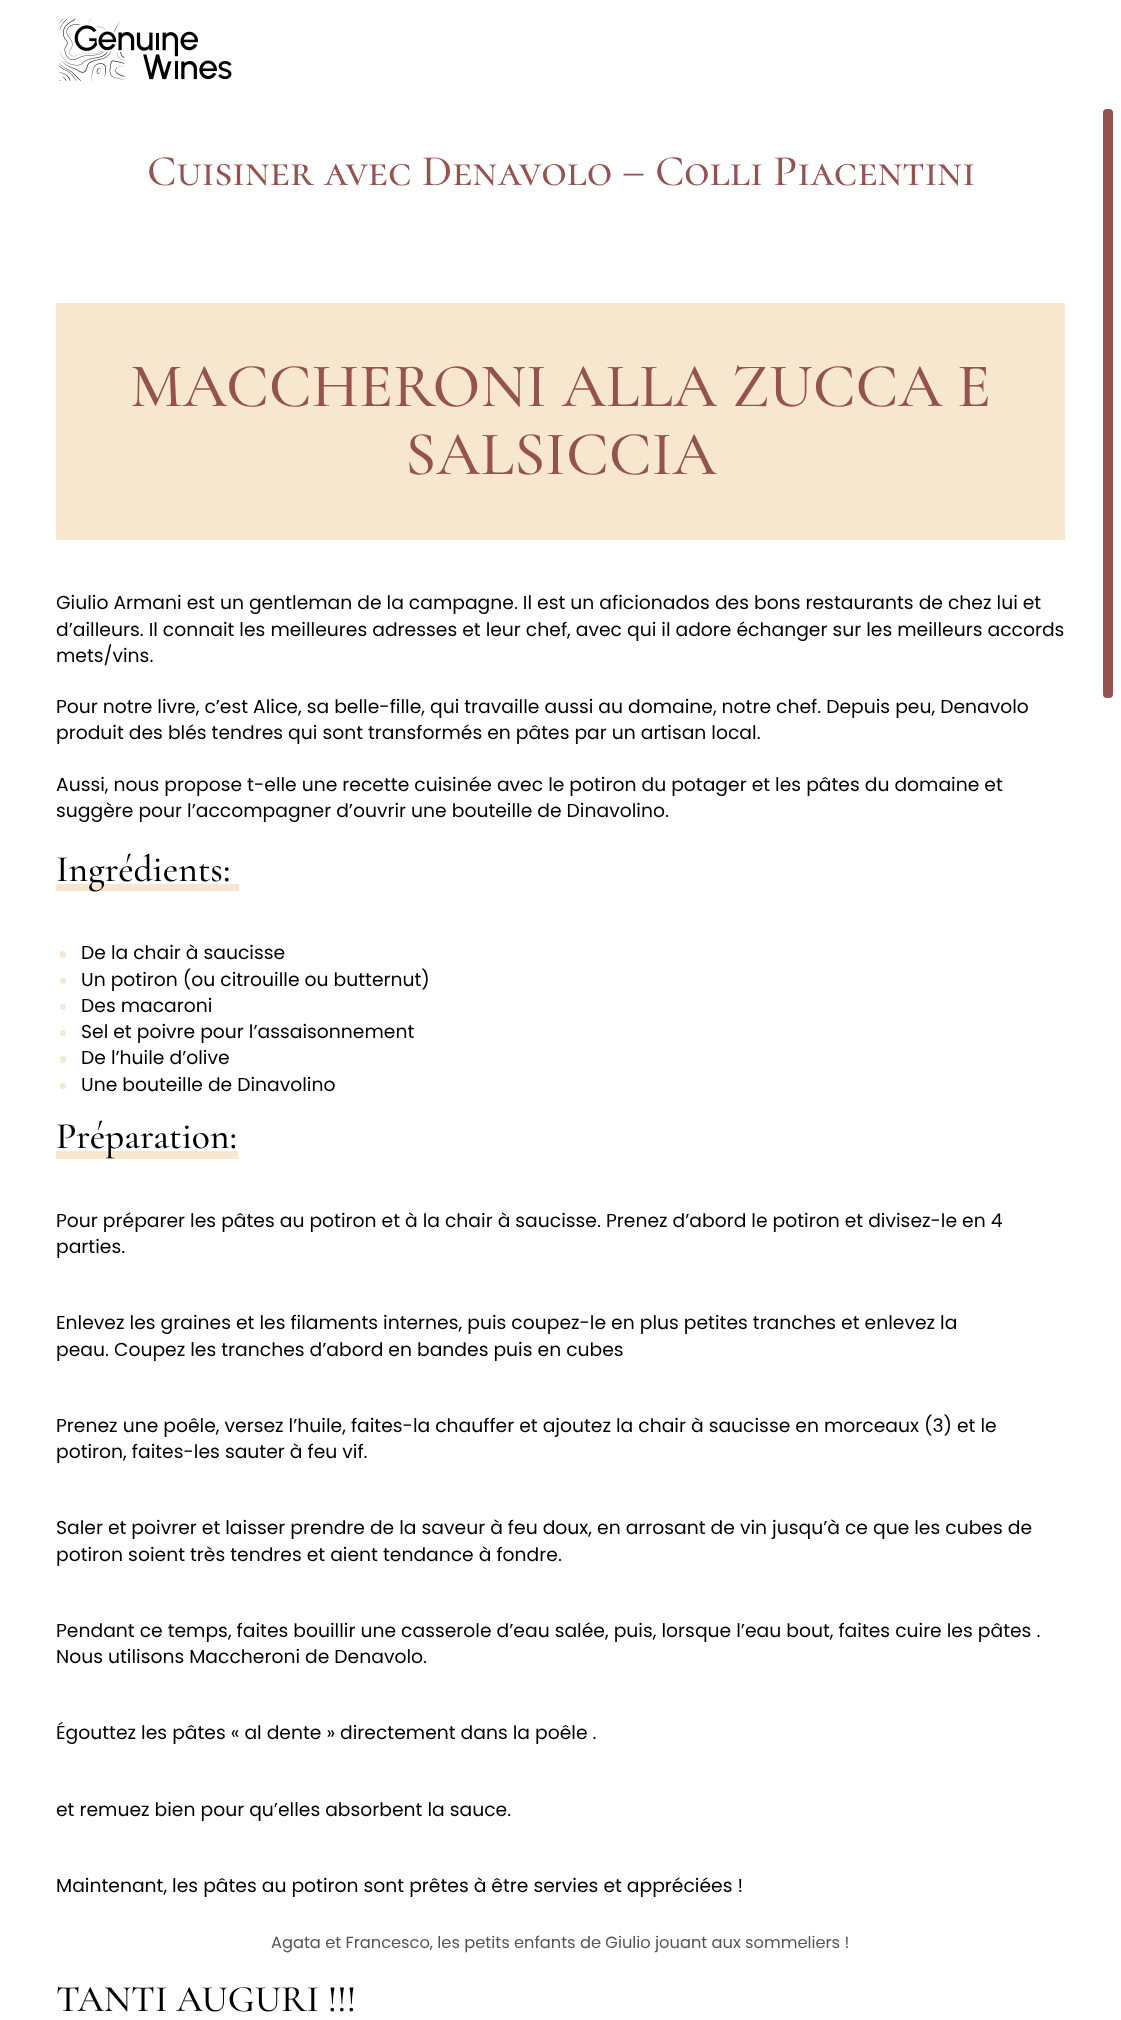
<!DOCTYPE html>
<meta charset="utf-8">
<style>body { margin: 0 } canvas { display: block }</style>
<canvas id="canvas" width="1121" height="2020"></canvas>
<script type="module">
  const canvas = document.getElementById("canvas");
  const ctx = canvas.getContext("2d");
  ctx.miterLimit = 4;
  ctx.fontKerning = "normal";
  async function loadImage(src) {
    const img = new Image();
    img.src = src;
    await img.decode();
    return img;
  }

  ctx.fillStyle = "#ffffff";
  ctx.fillRect(0, 0, 1121, 2020);
  ctx.drawImage(await loadImage("img1.png"), 59, 18, 173, 64);
  ctx.font = "500 43.75px Cormorant SC";
  ctx.fillStyle = "#955350";
  ctx.fillText("Cuisiner avec Denavolo – Colli Piacentini", 147, 185);
  ctx.fillStyle = "#f7e7ce";
  ctx.fillRect(56, 303, 1009, 237);
  ctx.font = "500 62.5px Cormorant Garamond";
  ctx.fillStyle = "#955350";
  ctx.fillText("MACCHERONI ALLA ZUCCA E", 130, 406);
  ctx.fillText("SALSICCIA", 405, 474);
  ctx.font = "18.75px Poppins";
  ctx.fillStyle = "#000000";
  ctx.fillText("Giulio Armani est un gentleman de la campagne. Il est un aficionados des bons restaurants de chez lui et", 56, 609);
  ctx.fillText("d’ailleurs. Il connait les meilleures adresses et leur chef, avec qui il adore échanger sur les meilleurs accords", 56, 636);
  ctx.fillText("mets/vins.", 56, 662);
  ctx.fillText("Pour notre livre, c’est Alice, sa belle-fille, qui travaille aussi au domaine, notre chef. Depuis peu, Denavolo", 56, 713);
  ctx.fillText("produit des blés tendres qui sont transformés en pâtes par un artisan local.", 56, 739);
  ctx.fillText("Aussi, nous propose t-elle une recette cuisinée avec le potiron du potager et les pâtes du domaine et", 56, 791);
  ctx.fillText("suggère pour l’accompagner d’ouvrir une bouteille de Dinavolino.", 56, 817);
  ctx.fillStyle = "#f7e7ce";
  ctx.fillRect(56, 884, 183, 7);
  ctx.font = "500 37.5px Cormorant Garamond";
  ctx.fillStyle = "#000000";
  ctx.fillText("Ingrédients:", 56, 881);
  ctx.fillStyle = "#f7e7ce";
  ctx.beginPath();
  ctx.roundRect(60, 951, 6, 7, 3);
  ctx.fill();
  ctx.font = "18.75px Poppins";
  ctx.fillStyle = "#000000";
  ctx.fillText("De la chair à saucisse", 81, 959);
  ctx.fillStyle = "#f7e7ce";
  ctx.beginPath();
  ctx.arc(63, 981, 3, 0, Math.PI * 2);
  ctx.fill();
  ctx.fillStyle = "#000000";
  ctx.fillText("Un potiron (ou citrouille ou butternut)", 81, 986);
  ctx.fillStyle = "#f7e7ce";
  ctx.beginPath();
  ctx.arc(63, 1007, 3, 0, Math.PI * 2);
  ctx.fill();
  ctx.fillStyle = "#000000";
  ctx.fillText("Des macaroni", 81, 1012);
  ctx.fillStyle = "#f7e7ce";
  ctx.beginPath();
  ctx.arc(63, 1033, 3, 0, Math.PI * 2);
  ctx.fill();
  ctx.fillStyle = "#000000";
  ctx.fillText("Sel et poivre pour l’assaisonnement", 81, 1038);
  ctx.fillStyle = "#f7e7ce";
  ctx.beginPath();
  ctx.roundRect(60, 1056, 6, 7, 3);
  ctx.fill();
  ctx.fillStyle = "#000000";
  ctx.fillText("De l’huile d’olive", 81, 1064);
  ctx.fillStyle = "#f7e7ce";
  ctx.beginPath();
  ctx.arc(63, 1086, 3, 0, Math.PI * 2);
  ctx.fill();
  ctx.fillStyle = "#000000";
  ctx.fillText("Une bouteille de Dinavolino", 81, 1091);
  ctx.fillStyle = "#f7e7ce";
  ctx.fillRect(56, 1151, 182, 8);
  ctx.font = "500 37.5px Cormorant Garamond";
  ctx.fillStyle = "#000000";
  ctx.fillText("Préparation:", 56, 1148);
  ctx.font = "18.75px Poppins";
  ctx.fillText("Pour préparer les pâtes au potiron et à la chair à saucisse. Prenez d’abord le potiron et divisez-le en 4", 56, 1227);
  ctx.fillText("parties.", 56, 1253);
  ctx.fillText("Enlevez les graines et les filaments internes, puis coupez-le en plus petites tranches et enlevez la", 56, 1329);
  ctx.fillText("peau. Coupez les tranches d’abord en bandes puis en cubes", 56, 1356);
  ctx.fillText("Prenez une poêle, versez l’huile, faites-la chauffer et ajoutez la chair à saucisse en morceaux (3) et le", 56, 1432);
  ctx.fillText("potiron, faites-les sauter à feu vif.", 56, 1458);
  ctx.fillText("Saler et poivrer et laisser prendre de la saveur à feu doux, en arrosant de vin jusqu’à ce que les cubes de", 56, 1534);
  ctx.fillText("potiron soient très tendres et aient tendance à fondre.", 56, 1561);
  ctx.fillText("Pendant ce temps, faites bouillir une casserole d’eau salée, puis, lorsque l’eau bout, faites cuire les pâtes .", 56, 1637);
  ctx.fillText("Nous utilisons Maccheroni de Denavolo.", 56, 1663);
  ctx.fillText("Égouttez les pâtes « al dente » directement dans la poêle .", 56, 1739);
  ctx.fillText("et remuez bien pour qu’elles absorbent la sauce.", 56, 1816);
  ctx.fillText("Maintenant, les pâtes au potiron sont prêtes à être servies et appréciées !", 56, 1892);
  ctx.font = "16.25px Poppins";
  ctx.fillStyle = "#555555";
  ctx.fillText("Agata et Francesco, les petits enfants de Giulio jouant aux sommeliers !", 271, 1948);
  ctx.font = "500 37.5px Cormorant Garamond";
  ctx.fillStyle = "#000000";
  ctx.fillText("TANTI AUGURI !!!", 56, 2011);
  ctx.fillStyle = "#955350";
  ctx.beginPath();
  ctx.roundRect(1103, 109, 10, 589, 4);
  ctx.fill();
</script>
